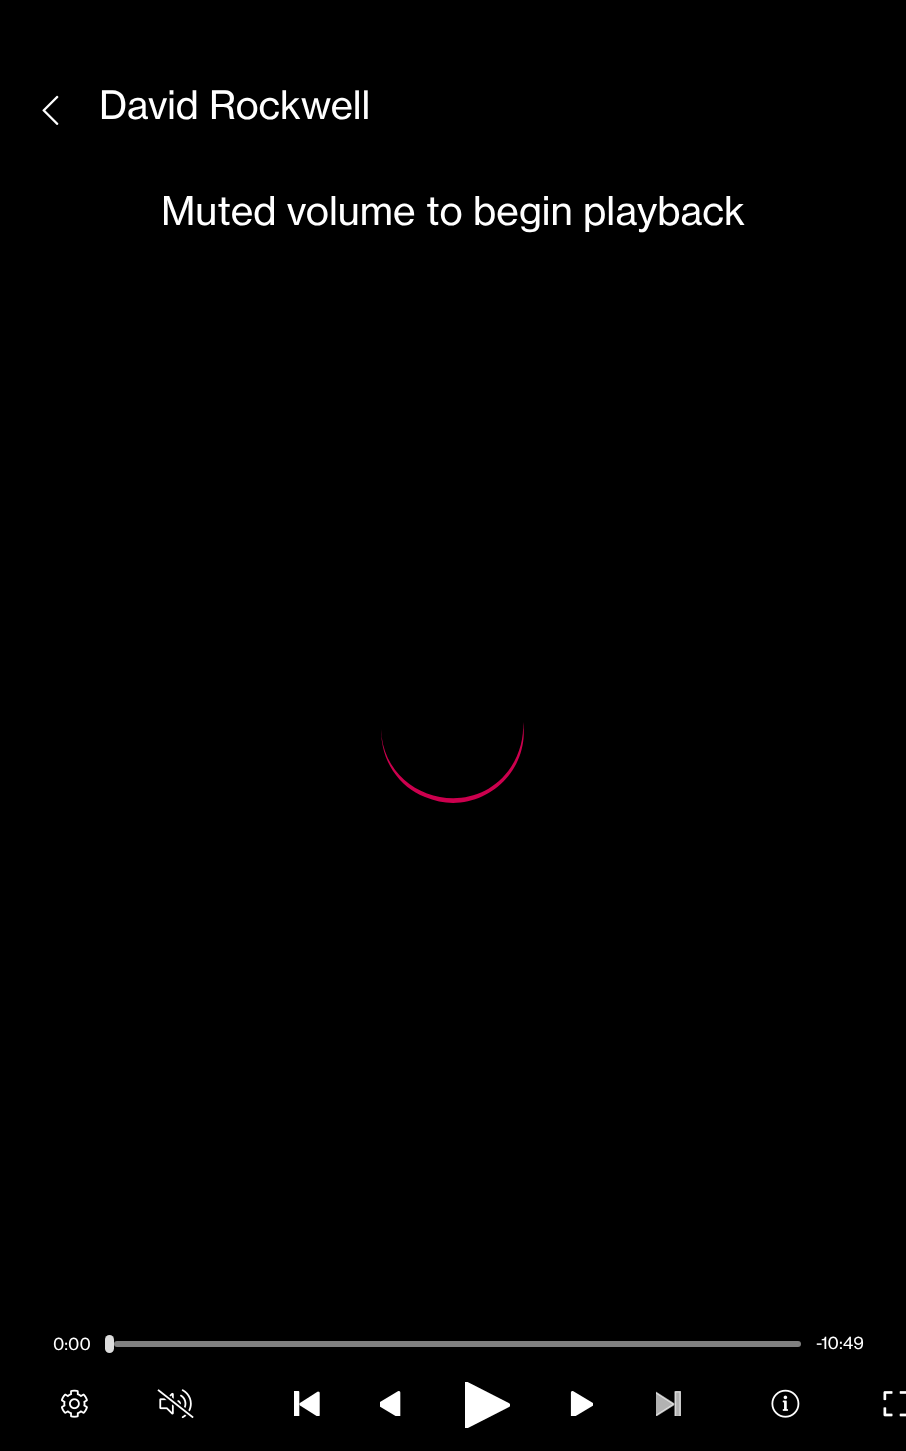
<!DOCTYPE html>
<meta charset="utf-8">
<style>body { margin: 0 } canvas { display: block }</style>
<canvas id="canvas" width="906" height="1451"></canvas>
<script type="module">
  const canvas = document.getElementById("canvas");
  const ctx = canvas.getContext("2d");
  ctx.miterLimit = 4;
  ctx.fontKerning = "normal";
  async function loadImage(src) {
    const img = new Image();
    img.src = src;
    await img.decode();
    return img;
  }

  ctx.fillStyle = "#000000";
  ctx.fillRect(0, 0, 906, 1451);
  ctx.drawImage(await loadImage("img1.png"), 42, 95, 17, 30);
  ctx.font = "38.5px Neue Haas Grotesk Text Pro";
  ctx.fillStyle = "#ffffff";
  ctx.fillText("David Rockwell", 99, 119);
  ctx.font = "17px Neue Haas Grotesk Text Pro";
  ctx.fillText("0:00", 53, 1350);
  ctx.fillStyle = "#dcdcdc";
  ctx.beginPath();
  ctx.roundRect(105, 1335, 9, 18, 4.5);
  ctx.fill();
  ctx.fillStyle = "#808080";
  ctx.beginPath();
  ctx.roundRect(114, 1341, 687, 6, 3);
  ctx.fill();
  ctx.fillStyle = "#ffffff";
  ctx.fillText("-10:49", 816, 1349);
  ctx.drawImage(await loadImage("img2.png"), 61, 1389, 27, 29);
  ctx.drawImage(await loadImage("img3.png"), 157, 1389, 37, 30);
  ctx.drawImage(await loadImage("img4.png"), 294, 1391, 26, 25);
  ctx.drawImage(await loadImage("img5.png"), 380, 1391, 21, 25);
  ctx.drawImage(await loadImage("img6.png"), 465, 1382, 45, 46);
  ctx.drawImage(await loadImage("img7.png"), 570, 1391, 23, 25);
  ctx.drawImage(await loadImage("img8.png"), 656, 1391, 25, 25);
  ctx.drawImage(await loadImage("img9.png"), 771, 1389, 29, 29);
  ctx.drawImage(await loadImage("img10.png"), 883, 1391, 23, 26);
  ctx.font = "39px Neue Haas Grotesk Text Pro";
  ctx.fillText("Muted volume to begin playback", 161, 225);
  ctx.fillStyle = "#cc004e";
  ctx.beginPath();
  ctx.moveTo(381, 729);
  ctx.bezierCurveTo(381, 744, 385, 759, 393, 771);
  ctx.bezierCurveTo(401, 783, 412, 792, 425, 797);
  ctx.bezierCurveTo(476, 819, 531, 776, 523, 722);
  ctx.bezierCurveTo(524, 737, 520, 753, 511, 767);
  ctx.bezierCurveTo(473, 824, 383, 798, 381, 729);
  ctx.closePath();
  ctx.fill();
</script>
